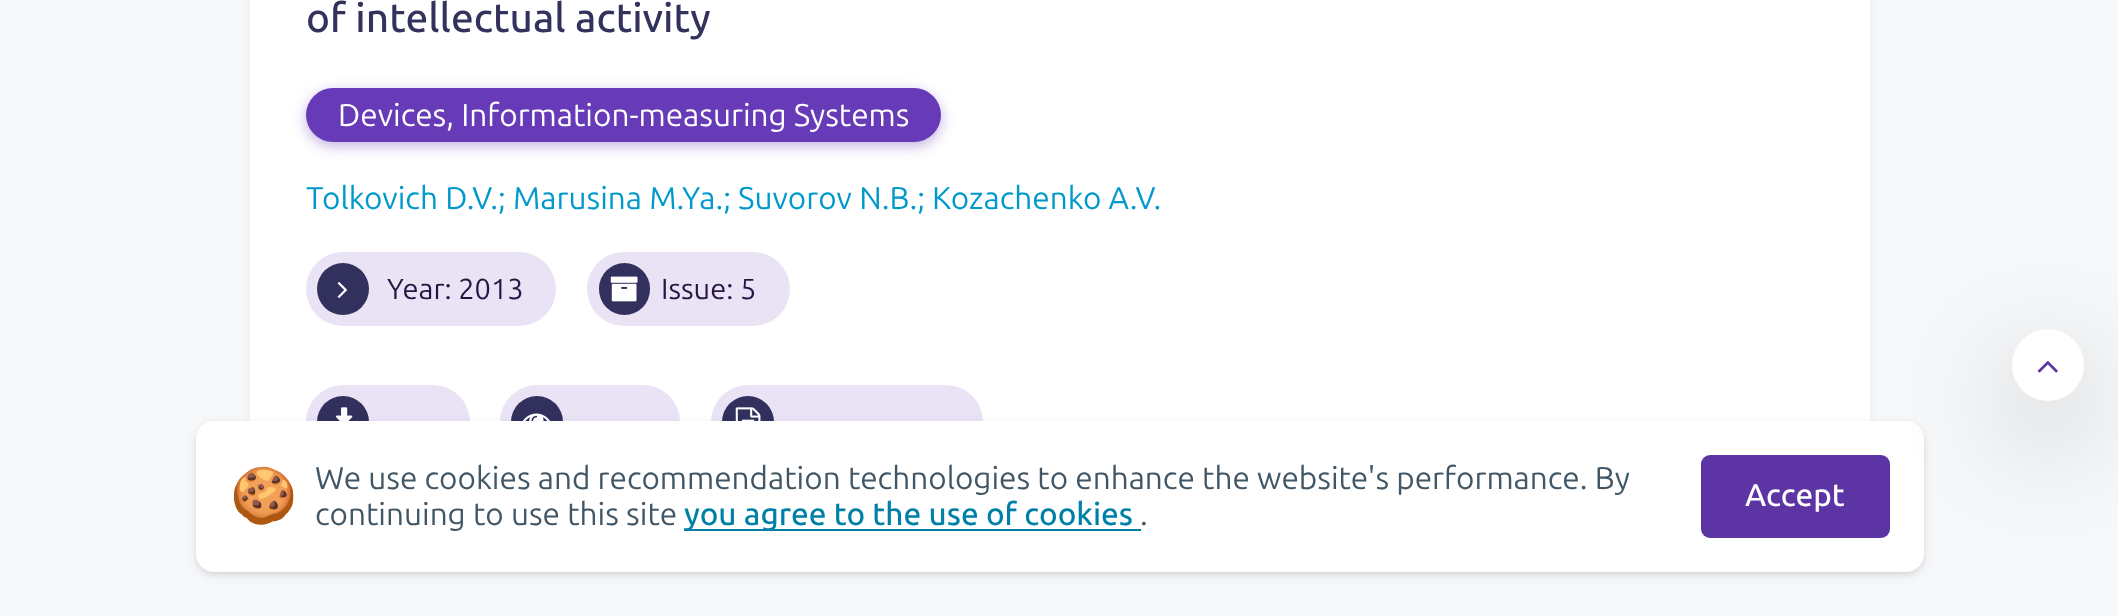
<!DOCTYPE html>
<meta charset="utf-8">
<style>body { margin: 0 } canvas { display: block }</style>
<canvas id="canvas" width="2118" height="616"></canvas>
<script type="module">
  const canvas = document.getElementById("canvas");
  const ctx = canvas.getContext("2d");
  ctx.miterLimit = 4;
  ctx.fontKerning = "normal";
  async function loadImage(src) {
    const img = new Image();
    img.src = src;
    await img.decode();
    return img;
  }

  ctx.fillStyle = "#f7f8f9";
  ctx.fillRect(0, 0, 2118, 616);
  ctx.fillStyle = "#e6ebf1";
  ctx.filter = "blur(3.5px)";
  ctx.beginPath();
  ctx.roundRect(250, -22, 1620, 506, 11);
  ctx.fill();
  ctx.filter = "none";
  ctx.fillStyle = "#ffffff";
  ctx.fillRect(250, 0, 1620, 421);
  ctx.font = "500 40.5px Ubuntu";
  ctx.fillStyle = "#32325d";
  ctx.fillText("of intellectual activity", 306, 32);
  ctx.fillStyle = "rgba(103, 58, 183, 0.4)";
  ctx.filter = "blur(7px)";
  ctx.beginPath();
  ctx.roundRect(306, 92, 635, 54, 27);
  ctx.fill();
  ctx.filter = "none";
  ctx.fillStyle = "#673ab7";
  ctx.beginPath();
  ctx.roundRect(306, 88, 635, 54, 27);
  ctx.fill();
  ctx.font = "31.5px Ubuntu";
  ctx.fillStyle = "#ffffff";
  ctx.fillText("Devices, Information-measuring Systems", 338, 126);
  ctx.fillStyle = "#0099cc";
  ctx.fillText("Tolkovich D.V.; Marusina M.Ya.; Suvorov N.B.; Kozachenko A.V.", 306, 209);
  ctx.fillStyle = "#eae3f5";
  ctx.beginPath();
  ctx.roundRect(306, 252, 250, 74, 37);
  ctx.fill();
  ctx.fillStyle = "#32315e";
  ctx.beginPath();
  ctx.arc(343, 289, 26, 0, Math.PI * 2);
  ctx.fill();
  ctx.drawImage(await loadImage("img1.png"), 337, 282, 10, 16);
  ctx.font = "29px Ubuntu";
  ctx.fillStyle = "#261543";
  ctx.fillText("Year: 2013", 387, 299);
  ctx.fillStyle = "#eae3f5";
  ctx.beginPath();
  ctx.roundRect(587, 252, 203, 74, 37);
  ctx.fill();
  ctx.fillStyle = "#32315e";
  ctx.beginPath();
  ctx.roundRect(599, 263, 51, 52, 25.5);
  ctx.fill();
  ctx.drawImage(await loadImage("img2.png"), 610, 276, 28, 26);
  ctx.fillStyle = "#261543";
  ctx.fillText("Issue: 5", 661, 299);
  ctx.fillStyle = "#eae3f5";
  ctx.beginPath();
  ctx.roundRect(306, 385, 164, 74, 37);
  ctx.fill();
  ctx.fillStyle = "#32315e";
  ctx.beginPath();
  ctx.arc(343, 422, 26, 0, Math.PI * 2);
  ctx.fill();
  ctx.drawImage(await loadImage("img3.png"), 335, 407, 18, 14);
  ctx.fillStyle = "#eae3f5";
  ctx.beginPath();
  ctx.roundRect(500, 385, 180, 74, 37);
  ctx.fill();
  ctx.fillStyle = "#32315e";
  ctx.beginPath();
  ctx.arc(537, 422, 26, 0, Math.PI * 2);
  ctx.fill();
  ctx.drawImage(await loadImage("img4.png"), 522, 413, 28, 8);
  ctx.fillStyle = "#eae3f5";
  ctx.beginPath();
  ctx.roundRect(711, 385, 272, 74, 37);
  ctx.fill();
  ctx.fillStyle = "#32315e";
  ctx.beginPath();
  ctx.arc(748, 422, 26, 0, Math.PI * 2);
  ctx.fill();
  ctx.drawImage(await loadImage("img5.png"), 735, 407, 26, 14);
  ctx.fillStyle = "rgba(0, 0, 0, 0.07)";
  ctx.filter = "blur(2px)";
  ctx.beginPath();
  ctx.roundRect(196, 423, 1728, 151, 18);
  ctx.fill();
  ctx.filter = "none";
  ctx.fillStyle = "rgba(10, 37, 64, 0.09)";
  ctx.filter = "blur(5.5px)";
  ctx.beginPath();
  ctx.roundRect(196, 425, 1728, 151, 18);
  ctx.fill();
  ctx.filter = "none";
  ctx.fillStyle = "#ffffff";
  ctx.beginPath();
  ctx.roundRect(196, 421, 1728, 151, 18);
  ctx.fill();
  ctx.font = "54px Noto Color Emoji";
  ctx.fillStyle = "#425766";
  ctx.fillText("🍪", 230, 514);
  ctx.font = "31.5px Ubuntu";
  ctx.fillText("We use cookies and recommendation technologies to enhance the website's performance. By", 315, 489);
  ctx.fillText("continuing to use this site", 315, 525);
  ctx.fillStyle = "#0080a7";
  ctx.fillRect(684, 529, 457, 2);
  ctx.font = "500 31.5px Ubuntu";
  ctx.fillText("you agree to the use of cookies", 684, 525);
  ctx.font = "31.5px Ubuntu";
  ctx.fillStyle = "#425766";
  ctx.fillText(".", 1140, 525);
  ctx.fillStyle = "#5c34a4";
  ctx.beginPath();
  ctx.roundRect(1701, 455, 189, 83, 9);
  ctx.fill();
  ctx.font = "500 31.5px Ubuntu";
  ctx.fillStyle = "#ffffff";
  ctx.fillText("Accept", 1745, 506);
  ctx.fillStyle = "rgba(0, 0, 0, 0.28)";
  ctx.filter = "blur(54px)";
  ctx.beginPath();
  ctx.roundRect(2012, 365, 72, 72, 36);
  ctx.fill();
  ctx.filter = "none";
  ctx.fillStyle = "#ffffff";
  ctx.beginPath();
  ctx.arc(2048, 365, 36, 0, Math.PI * 2);
  ctx.fill();
  ctx.drawImage(await loadImage("img6.png"), 2037, 361, 21, 12);
</script>
